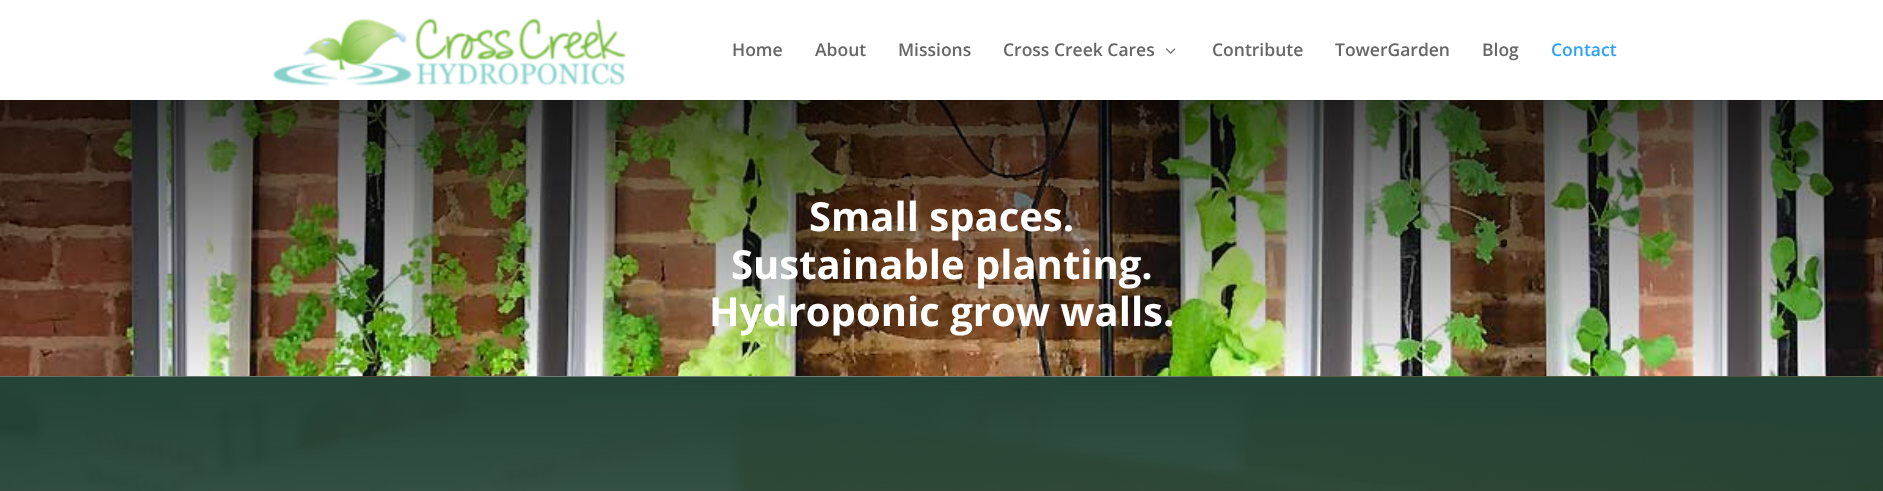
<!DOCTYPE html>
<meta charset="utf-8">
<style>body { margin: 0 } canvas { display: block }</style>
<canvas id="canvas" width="1883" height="491"></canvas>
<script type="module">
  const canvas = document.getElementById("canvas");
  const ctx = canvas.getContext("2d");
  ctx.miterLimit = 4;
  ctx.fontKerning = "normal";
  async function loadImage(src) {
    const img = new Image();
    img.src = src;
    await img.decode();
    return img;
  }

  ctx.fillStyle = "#ffffff";
  ctx.fillRect(0, 0, 1883, 491);
  ctx.drawImage(await loadImage("img3.png"), 0, 100, 1883, 277);
  ctx.fillStyle = "rgba(0, 0, 0, 0.1)";
  ctx.beginPath();
  ctx.moveTo(0, 100);
  ctx.lineTo(0, 101);
  ctx.lineTo(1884, 101);
  ctx.lineTo(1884, 1);
  ctx.lineTo(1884, 100);
  ctx.closePath();
  ctx.fill();
  ctx.drawImage(await loadImage("img1.png"), 272, 18, 354, 68);
  ctx.font = "600 17.5px Open Sans";
  ctx.fillStyle = "#666666";
  ctx.fillText("Home", 732, 56);
  ctx.fillText("About", 815, 56);
  ctx.fillText("Missions", 898, 56);
  ctx.fillText("Cross Creek Cares", 1003, 56);
  ctx.drawImage(await loadImage("img2.png"), 1166, 48, 10, 6);
  ctx.fillText("Contribute", 1212, 56);
  ctx.fillText("TowerGarden", 1335, 56);
  ctx.fillText("Blog", 1482, 56);
  ctx.fillStyle = "#2ea3f2";
  ctx.fillText("Contact", 1551, 56);
  ctx.font = "bold 40px Open Sans";
  ctx.fillStyle = "#ffffff";
  ctx.fillText("Small spaces.", 809, 231);
  ctx.fillText("Sustainable planting.", 731, 279);
  ctx.fillText("Hydroponic grow walls.", 709, 326);
  ctx.drawImage(await loadImage("img4.png"), 0, 376, 1883, 115);
</script>
